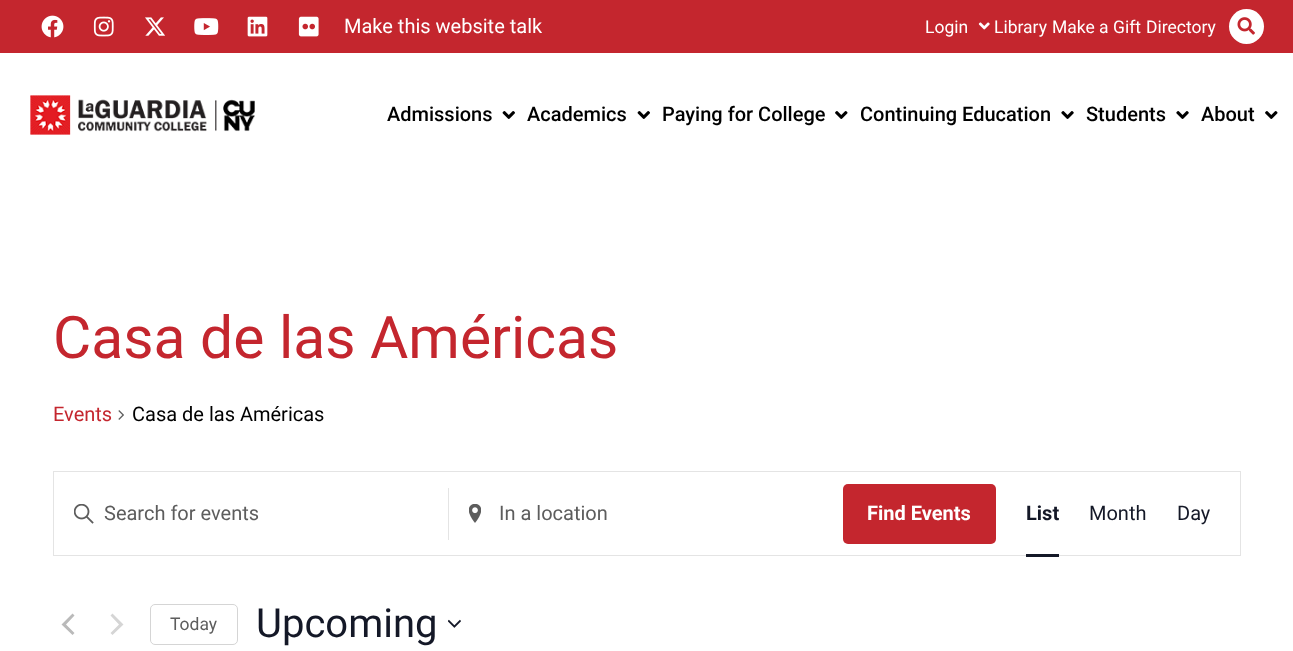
<!DOCTYPE html>
<meta charset="utf-8">
<style>body { margin: 0 } canvas { display: block }</style>
<canvas id="canvas" width="1293" height="651"></canvas>
<script type="module">
  const canvas = document.getElementById("canvas");
  const ctx = canvas.getContext("2d");
  ctx.miterLimit = 4;
  ctx.fontKerning = "normal";
  async function loadImage(src) {
    const img = new Image();
    img.src = src;
    await img.decode();
    return img;
  }

  ctx.fillStyle = "#ffffff";
  ctx.fillRect(0, 0, 1293, 651);
  ctx.fillStyle = "#c4262e";
  ctx.fillRect(0, 0, 1293, 53);
  ctx.drawImage(await loadImage("img1.png"), 41, 15, 23, 23);
  ctx.drawImage(await loadImage("img2.png"), 93, 16, 21, 21);
  ctx.drawImage(await loadImage("img3.png"), 145, 17, 20, 19);
  ctx.drawImage(await loadImage("img4.png"), 194, 18, 25, 17);
  ctx.drawImage(await loadImage("img5.png"), 247, 16, 21, 21);
  ctx.drawImage(await loadImage("img6.png"), 298, 16, 21, 21);
  ctx.font = "20px Roboto";
  ctx.fillStyle = "#ffffff";
  ctx.fillText("Make this website talk", 344, 33);
  ctx.font = "17.5px Roboto";
  ctx.fillText("Login", 925, 33);
  ctx.drawImage(await loadImage("img7.png"), 978, 22, 12, 8);
  ctx.fillText("Library", 994, 33);
  ctx.fillText("Make a Gift", 1052, 33);
  ctx.fillText("Directory", 1146, 33);
  ctx.beginPath();
  ctx.arc(1246.5, 26.5, 17.5, 0, Math.PI * 2);
  ctx.fill();
  ctx.drawImage(await loadImage("img8.png"), 1237, 17, 18, 18);
  ctx.drawImage(await loadImage("img9.png"), 30, 95, 225, 40);
  ctx.font = "500 20px Roboto";
  ctx.fillStyle = "#000000";
  ctx.fillText("Admissions", 387, 121);
  ctx.drawImage(await loadImage("img10.png"), 502, 111, 13, 8);
  ctx.fillText("Academics", 527, 121);
  ctx.drawImage(await loadImage("img10.png"), 637, 111, 13, 8);
  ctx.fillText("Paying for College", 662, 121);
  ctx.drawImage(await loadImage("img11.png"), 835, 111, 13, 8);
  ctx.fillText("Continuing Education", 860, 121);
  ctx.drawImage(await loadImage("img12.png"), 1061, 111, 13, 8);
  ctx.fillText("Students", 1086, 121);
  ctx.drawImage(await loadImage("img12.png"), 1176, 111, 13, 8);
  ctx.fillText("About", 1201, 121);
  ctx.drawImage(await loadImage("img11.png"), 1265, 111, 13, 8);
  ctx.font = "58.75px Roboto";
  ctx.fillStyle = "#c4262e";
  ctx.fillText("Casa de las Américas", 53, 358);
  ctx.font = "20px Roboto";
  ctx.fillText("Events", 53, 421);
  ctx.drawImage(await loadImage("img13.png"), 118, 410, 6, 10);
  ctx.fillStyle = "#000000";
  ctx.fillText("Casa de las Américas", 132, 421);
  ctx.strokeStyle = "#e4e4e4";
  ctx.strokeRect(53.5, 471.5, 1187, 84);
  ctx.fillStyle = "#e4e4e4";
  ctx.fillRect(448, 488, 1, 52);
  ctx.drawImage(await loadImage("img14.png"), 74, 504, 20, 20);
  ctx.fillStyle = "#5d5d5d";
  ctx.fillText("Search for events", 104, 520);
  ctx.drawImage(await loadImage("img15.png"), 469, 504, 12, 19);
  ctx.fillText("In a location", 499, 520);
  ctx.fillStyle = "#c4262e";
  ctx.beginPath();
  ctx.roundRect(843, 484, 153, 60, 5);
  ctx.fill();
  ctx.font = "bold 20px Roboto";
  ctx.fillStyle = "#ffffff";
  ctx.fillText("Find Events", 867, 520);
  ctx.fillStyle = "#141827";
  ctx.fillText("List", 1026, 520);
  ctx.fillRect(1026, 554, 33, 3);
  ctx.font = "20px Roboto";
  ctx.fillText("Month", 1089, 520);
  ctx.fillText("Day", 1177, 520);
  ctx.fillStyle = "#bababa";
  ctx.beginPath();
  ctx.moveTo(74.5, 633);
  ctx.lineTo(72.5, 635);
  ctx.lineTo(61.5, 624.5);
  ctx.lineTo(72.5, 613.5);
  ctx.lineTo(74.5, 615.5);
  ctx.lineTo(66, 624.5);
  ctx.closePath();
  ctx.fill();
  ctx.fillStyle = "#d5d5d5";
  ctx.beginPath();
  ctx.moveTo(110.5, 615.5);
  ctx.lineTo(112.5, 613.5);
  ctx.lineTo(123.5, 624.5);
  ctx.lineTo(112.5, 635);
  ctx.lineTo(110.5, 633);
  ctx.lineTo(119, 624.5);
  ctx.closePath();
  ctx.fill();
  ctx.beginPath();
  ctx.roundRect(150.5, 604.5, 87, 40, 4.5);
  ctx.strokeStyle = "#d5d5d5";
  ctx.stroke();
  ctx.font = "17.5px Roboto";
  ctx.fillStyle = "#5d5d5d";
  ctx.fillText("Today", 170, 630);
  ctx.font = "40px Roboto";
  ctx.fillStyle = "#141827";
  ctx.fillText("Upcoming", 256, 637);
  ctx.drawImage(await loadImage("img16.png"), 448, 619, 13, 9);
</script>
